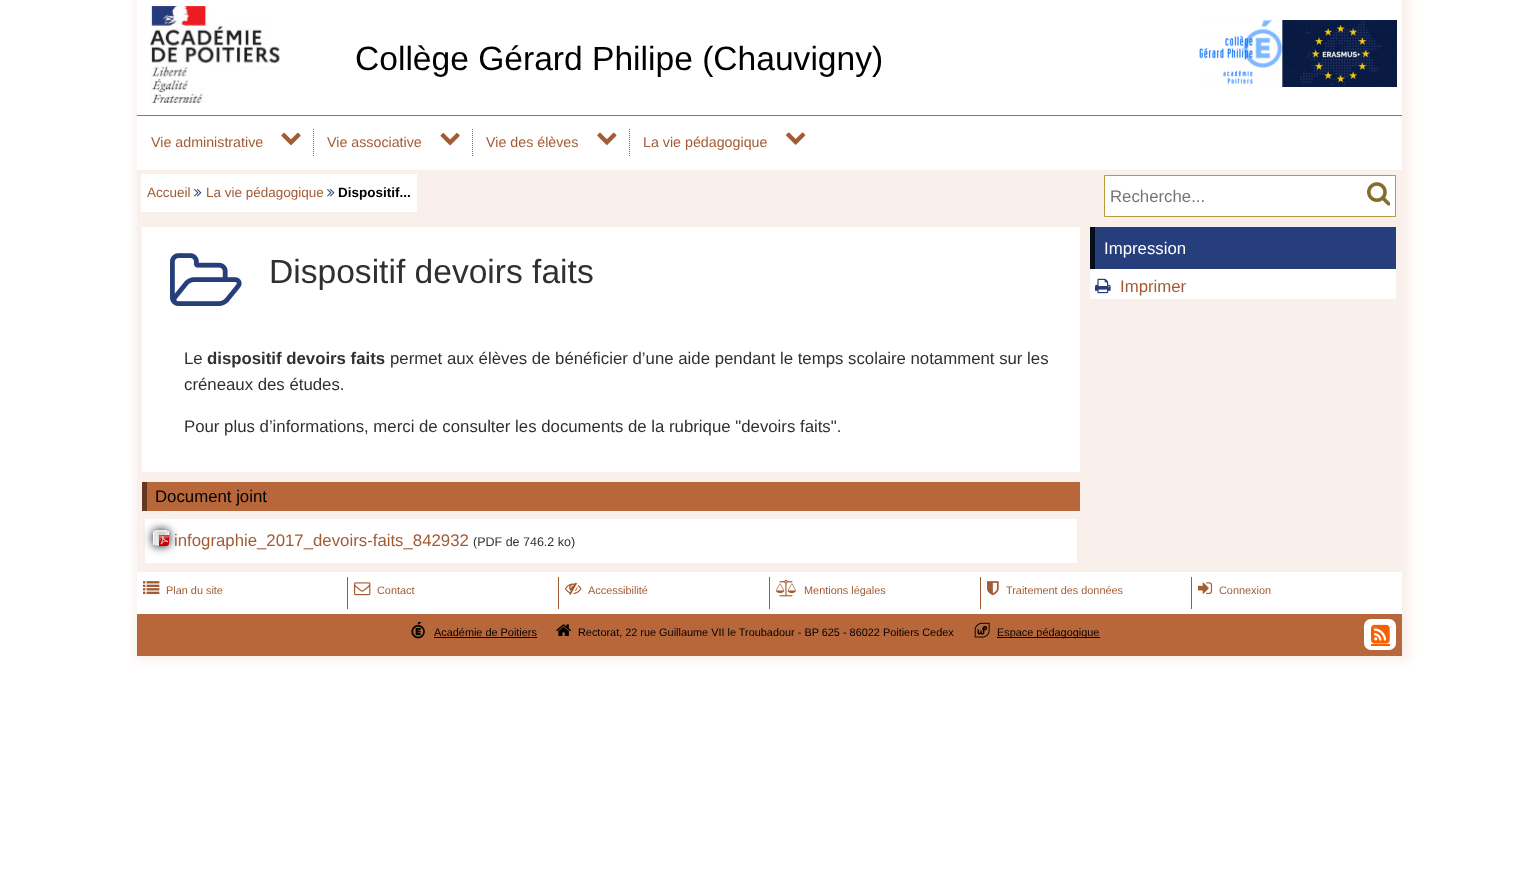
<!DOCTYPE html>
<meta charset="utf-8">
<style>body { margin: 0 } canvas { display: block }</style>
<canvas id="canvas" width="1538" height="881"></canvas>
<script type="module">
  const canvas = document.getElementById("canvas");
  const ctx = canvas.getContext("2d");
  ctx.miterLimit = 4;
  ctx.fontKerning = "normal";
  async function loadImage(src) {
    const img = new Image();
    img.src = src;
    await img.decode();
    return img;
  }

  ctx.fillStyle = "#ffffff";
  ctx.fillRect(0, 0, 1538, 881);
  ctx.fillStyle = "#f9f0ec";
  ctx.filter = "blur(5px)";
  ctx.beginPath();
  ctx.rect(135, -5, 1275, 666);
  ctx.fill();
  ctx.filter = "none";
  ctx.fillRect(137, 170, 3, 402);
  ctx.fillStyle = "#ffffff";
  ctx.fillRect(137, 0, 1265, 115);
  ctx.drawImage(await loadImage("img1.png"), 150, 6, 130, 97);
  ctx.font = "33.6px Liberation Sans";
  ctx.fillStyle = "#000000";
  ctx.fillText("Collège Gérard Philipe (Chauvigny)", 355, 70);
  ctx.drawImage(await loadImage("img2.png"), 1199, 20, 198, 67);
  ctx.fillStyle = "#ffffff";
  ctx.fillRect(137, 116, 1265, 54);
  ctx.fillStyle = "#b8673b";
  ctx.fillRect(137, 115, 1265, 1);
  ctx.font = "14.25px Liberation Sans";
  ctx.fillStyle = "#a35b34";
  ctx.fillText("Vie administrative", 151, 147);
  ctx.drawImage(await loadImage("img3.png"), 281, 132, 20, 14);
  ctx.beginPath();
  ctx.moveTo(313.5, 129);
  ctx.lineTo(313.5, 156);
  ctx.strokeStyle = "#a35b34";
  ctx.setLineDash([1, 1]);
  ctx.stroke();
  ctx.fillText("Vie associative", 327, 147);
  ctx.drawImage(await loadImage("img4.png"), 440, 133, 20, 13);
  ctx.beginPath();
  ctx.moveTo(472.5, 129);
  ctx.lineTo(472.5, 156);
  ctx.stroke();
  ctx.fillText("Vie des élèves", 486, 147);
  ctx.drawImage(await loadImage("img5.png"), 597, 132, 20, 13);
  ctx.beginPath();
  ctx.moveTo(629.5, 129);
  ctx.lineTo(629.5, 156);
  ctx.stroke();
  ctx.fillText("La vie pédagogique", 643, 147);
  ctx.drawImage(await loadImage("img6.png"), 786, 132, 20, 13);
  ctx.fillStyle = "#ffffff";
  ctx.fillRect(141, 174, 276, 38);
  ctx.font = "13.5px Liberation Sans";
  ctx.fillStyle = "#a35b34";
  ctx.fillText("Accueil", 147, 197);
  ctx.drawImage(await loadImage("img7.png"), 194, 189, 8, 8);
  ctx.fillText("La vie pédagogique", 206, 197);
  ctx.drawImage(await loadImage("img7.png"), 327, 189, 8, 8);
  ctx.font = "bold 13.5px Liberation Sans";
  ctx.fillStyle = "#000000";
  ctx.fillText("Dispositif...", 338, 197);
  ctx.fillStyle = "#ffffff";
  ctx.beginPath();
  ctx.rect(1104.5, 175.5, 291, 41);
  ctx.fill();
  ctx.strokeStyle = "#b8993b";
  ctx.setLineDash([]);
  ctx.stroke();
  ctx.font = "16.8px Liberation Sans";
  ctx.fillStyle = "#757575";
  ctx.fillText("Recherche...", 1110, 202);
  ctx.drawImage(await loadImage("img8.png"), 1367, 182, 23, 24);
  ctx.fillStyle = "#ffffff";
  ctx.fillRect(142, 227, 938, 245);
  ctx.drawImage(await loadImage("img9.png"), 170, 253, 72, 53);
  ctx.font = "33.6px Liberation Sans";
  ctx.fillStyle = "#303030";
  ctx.fillText("Dispositif devoirs faits", 269, 283);
  ctx.font = "16.8px Liberation Sans";
  ctx.fillText("Le", 184, 364);
  ctx.font = "bold 16.8px Liberation Sans";
  ctx.fillText("dispositif devoirs faits", 207, 364);
  ctx.font = "16.8px Liberation Sans";
  ctx.fillText("permet aux élèves de bénéficier d’une aide pendant le temps scolaire notamment sur les", 390, 364);
  ctx.fillText("créneaux des études.", 184, 390);
  ctx.fillText("Pour plus d’informations, merci de consulter les documents de la rubrique \"devoirs faits\".", 184, 432);
  ctx.fillStyle = "#b8673b";
  ctx.fillRect(147, 482, 933, 29);
  ctx.fillStyle = "#633720";
  ctx.fillRect(142, 482, 5, 29);
  ctx.fillStyle = "#000000";
  ctx.fillText("Document joint", 155, 502);
  ctx.fillStyle = "#ffffff";
  ctx.fillRect(145, 519, 932, 44);
  ctx.fillStyle = "#080d1a";
  ctx.filter = "blur(5px)";
  ctx.beginPath();
  ctx.roundRect(153, 530, 16, 16, 3);
  ctx.fill();
  ctx.filter = "none";
  ctx.drawImage(await loadImage("img10.png"), 153, 530, 16, 16);
  ctx.fillStyle = "#a35b34";
  ctx.fillText("infographie_2017_devoirs-faits_842932", 174, 546);
  ctx.font = "12.5px Liberation Sans";
  ctx.fillStyle = "#303030";
  ctx.fillText("(PDF de 746.2 ko)", 473, 546);
  ctx.fillStyle = "#ffffff";
  ctx.fillRect(1090, 269, 306, 30);
  ctx.fillStyle = "#263e7b";
  ctx.fillRect(1095, 227, 301, 42);
  ctx.fillStyle = "#080d1a";
  ctx.fillRect(1090, 227, 5, 42);
  ctx.font = "16.8px Liberation Sans";
  ctx.fillStyle = "#ffffff";
  ctx.fillText("Impression", 1104, 254);
  ctx.drawImage(await loadImage("img11.png"), 1095, 278, 16, 16);
  ctx.fillStyle = "#a35b34";
  ctx.fillText("Imprimer", 1120, 292);
  ctx.fillStyle = "#ffffff";
  ctx.fillRect(137, 572, 1265, 42);
  ctx.drawImage(await loadImage("img12.png"), 143, 581, 17, 13);
  ctx.font = "10.9px Liberation Sans";
  ctx.fillStyle = "#a35b34";
  ctx.fillText("Plan du site", 166, 594);
  ctx.fillRect(347, 577, 1, 32);
  ctx.drawImage(await loadImage("img13.png"), 354, 582, 17, 14);
  ctx.fillText("Contact", 377, 594);
  ctx.fillRect(558, 577, 1, 32);
  ctx.drawImage(await loadImage("img14.png"), 565, 582, 17, 13);
  ctx.fillText("Accessibilité", 588, 594);
  ctx.fillRect(769, 577, 1, 32);
  ctx.drawImage(await loadImage("img15.png"), 776, 580, 20, 17);
  ctx.fillText("Mentions légales", 804, 594);
  ctx.fillRect(980, 577, 1, 32);
  ctx.drawImage(await loadImage("img16.png"), 987, 581, 12, 15);
  ctx.fillText("Traitement des données", 1006, 594);
  ctx.fillRect(1191, 577, 1, 32);
  ctx.drawImage(await loadImage("img17.png"), 1198, 582, 15, 12);
  ctx.fillText("Connexion", 1219, 594);
  ctx.fillStyle = "#b8673b";
  ctx.fillRect(137, 614, 1265, 42);
  ctx.drawImage(await loadImage("img18.png"), 411, 621, 14, 18);
  ctx.fillStyle = "#000000";
  ctx.fillText("Académie de Poitiers", 434, 636);
  ctx.fillRect(434, 637, 103, 1);
  ctx.drawImage(await loadImage("img19.png"), 556, 624, 15, 12);
  ctx.fillText("Rectorat, 22 rue Guillaume VII le Troubadour - BP 625 - 86022 Poitiers Cedex", 578, 636);
  ctx.drawImage(await loadImage("img20.png"), 974, 622, 16, 16);
  ctx.fillRect(997, 637, 103, 1);
  ctx.fillText("Espace pédagogique", 997, 636);
  ctx.fillStyle = "#ffffff";
  ctx.beginPath();
  ctx.roundRect(1364, 619, 32, 31, 7);
  ctx.fill();
  ctx.drawImage(await loadImage("img21.png"), 1371, 624, 19, 20);
  ctx.fillStyle = "#f86000";
  ctx.fillRect(1371, 644, 19, 2);
</script>
